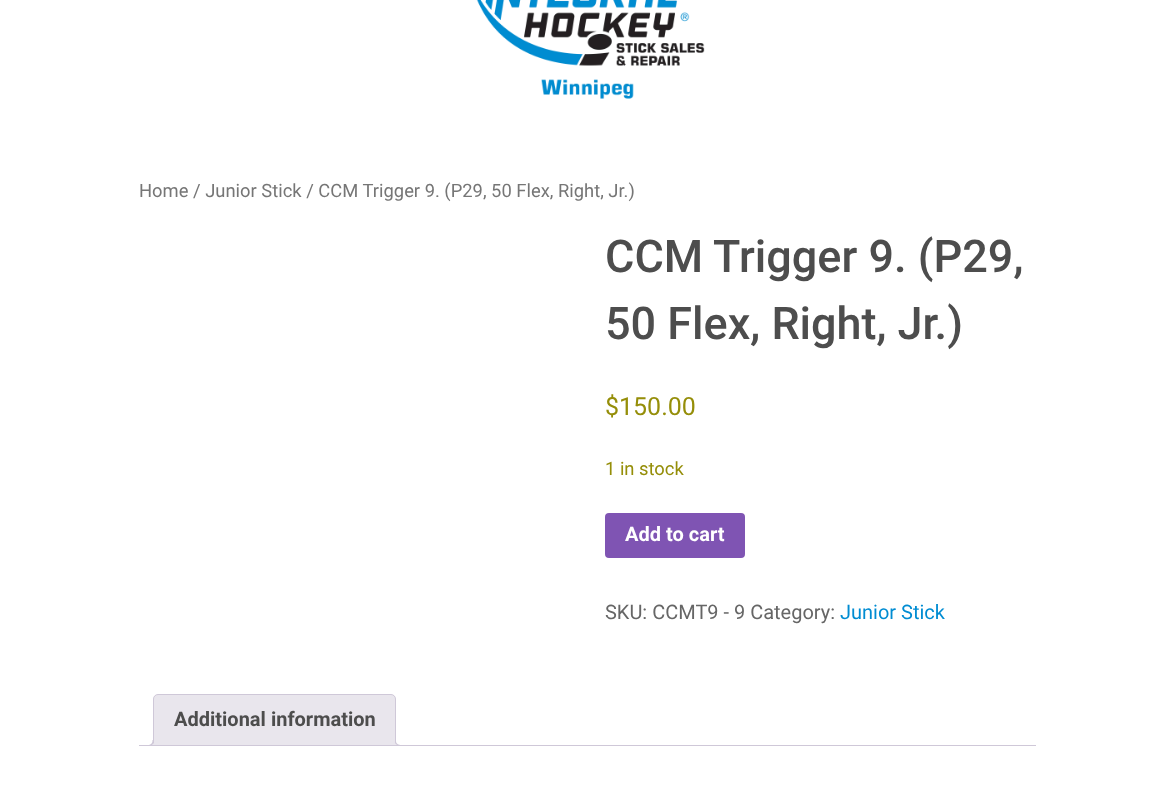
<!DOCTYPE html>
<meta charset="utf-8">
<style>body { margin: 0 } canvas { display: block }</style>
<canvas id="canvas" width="1174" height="807"></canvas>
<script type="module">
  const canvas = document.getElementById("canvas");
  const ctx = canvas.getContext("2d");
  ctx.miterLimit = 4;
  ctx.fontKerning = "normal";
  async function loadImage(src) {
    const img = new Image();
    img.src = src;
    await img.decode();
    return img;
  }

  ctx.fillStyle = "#ffffff";
  ctx.fillRect(0, 0, 1174, 807);
  ctx.drawImage(await loadImage("img1.png"), 476, 0, 229, 99);
  ctx.font = "18.4px Roboto";
  ctx.fillStyle = "#767676";
  ctx.fillText("Home / Junior Stick / CCM Trigger 9. (P29, 50 Flex, Right, Jr.)", 139, 197);
  ctx.font = "500 45px Roboto";
  ctx.fillStyle = "#4d4d4d";
  ctx.fillText("CCM Trigger 9. (P29,", 605, 272);
  ctx.fillText("50 Flex, Right, Jr.)", 605, 339);
  ctx.font = "25px Roboto";
  ctx.fillStyle = "#958e09";
  ctx.fillText("$150.00", 605, 415);
  ctx.font = "18.4px Roboto";
  ctx.fillText("1 in stock", 605, 475);
  ctx.fillStyle = "#7f54b3";
  ctx.beginPath();
  ctx.roundRect(605, 513, 140, 45, 4);
  ctx.fill();
  ctx.font = "bold 20px Roboto";
  ctx.fillStyle = "#ffffff";
  ctx.fillText("Add to cart", 625, 541);
  ctx.font = "20px Roboto";
  ctx.fillStyle = "#666666";
  ctx.fillText("SKU: CCMT9 - 9 Category:", 605, 619);
  ctx.fillStyle = "#008cd2";
  ctx.fillText("Junior Stick", 840, 619);
  ctx.fillStyle = "#e9e6ed";
  ctx.beginPath();
  ctx.roundRect(153.5, 694.5, 242, 51, [4.5, 4.5, 0, 0]);
  ctx.fill();
  ctx.strokeStyle = "#cfc8d8";
  ctx.stroke();
  ctx.font = "bold 20px Roboto";
  ctx.fillStyle = "#4d4d4d";
  ctx.fillText("Additional information", 174, 726);
  ctx.save();
  ctx.beginPath();
  ctx.rect(139, 694, 897, 52);
  ctx.clip();
  ctx.fillStyle = "#e9e6ed";
  ctx.beginPath();
  ctx.moveTo(150, 746);
  ctx.lineTo(150, 749);
  ctx.bezierCurveTo(154, 749, 156, 747, 156, 743);
  ctx.lineTo(153.5, 743);
  ctx.bezierCurveTo(153, 744.5, 151.5, 745.5, 150, 746);
  ctx.closePath();
  ctx.fill();
  ctx.restore();
  ctx.fillStyle = "#cfc8d8";
  ctx.beginPath();
  ctx.moveTo(147.5, 740);
  ctx.lineTo(154, 740);
  ctx.bezierCurveTo(154, 744.5, 152, 746, 147.5, 746);
  ctx.closePath();
  ctx.moveTo(147.5, 740);
  ctx.lineTo(152.5, 740);
  ctx.bezierCurveTo(152.5, 743.5, 151, 745, 147.5, 745);
  ctx.closePath();
  ctx.fill("evenodd");
  ctx.save();
  ctx.beginPath();
  ctx.rect(139, 694, 897, 52);
  ctx.clip();
  ctx.fillStyle = "#e9e6ed";
  ctx.beginPath();
  ctx.moveTo(393, 743);
  ctx.bezierCurveTo(393, 747, 395, 749, 399, 749);
  ctx.lineTo(399, 746);
  ctx.bezierCurveTo(397.5, 746, 396, 744.5, 395.5, 743);
  ctx.closePath();
  ctx.fill();
  ctx.restore();
  ctx.beginPath();
  ctx.moveTo(395, 740);
  ctx.lineTo(401, 740);
  ctx.lineTo(401, 746);
  ctx.bezierCurveTo(398, 746, 395, 745, 395, 741);
  ctx.closePath();
  ctx.moveTo(396, 740);
  ctx.lineTo(401, 740);
  ctx.lineTo(401, 745);
  ctx.bezierCurveTo(399, 745, 396, 744, 396, 741);
  ctx.closePath();
  ctx.fill("evenodd");
  ctx.fillRect(139, 745, 897, 1);
</script>
